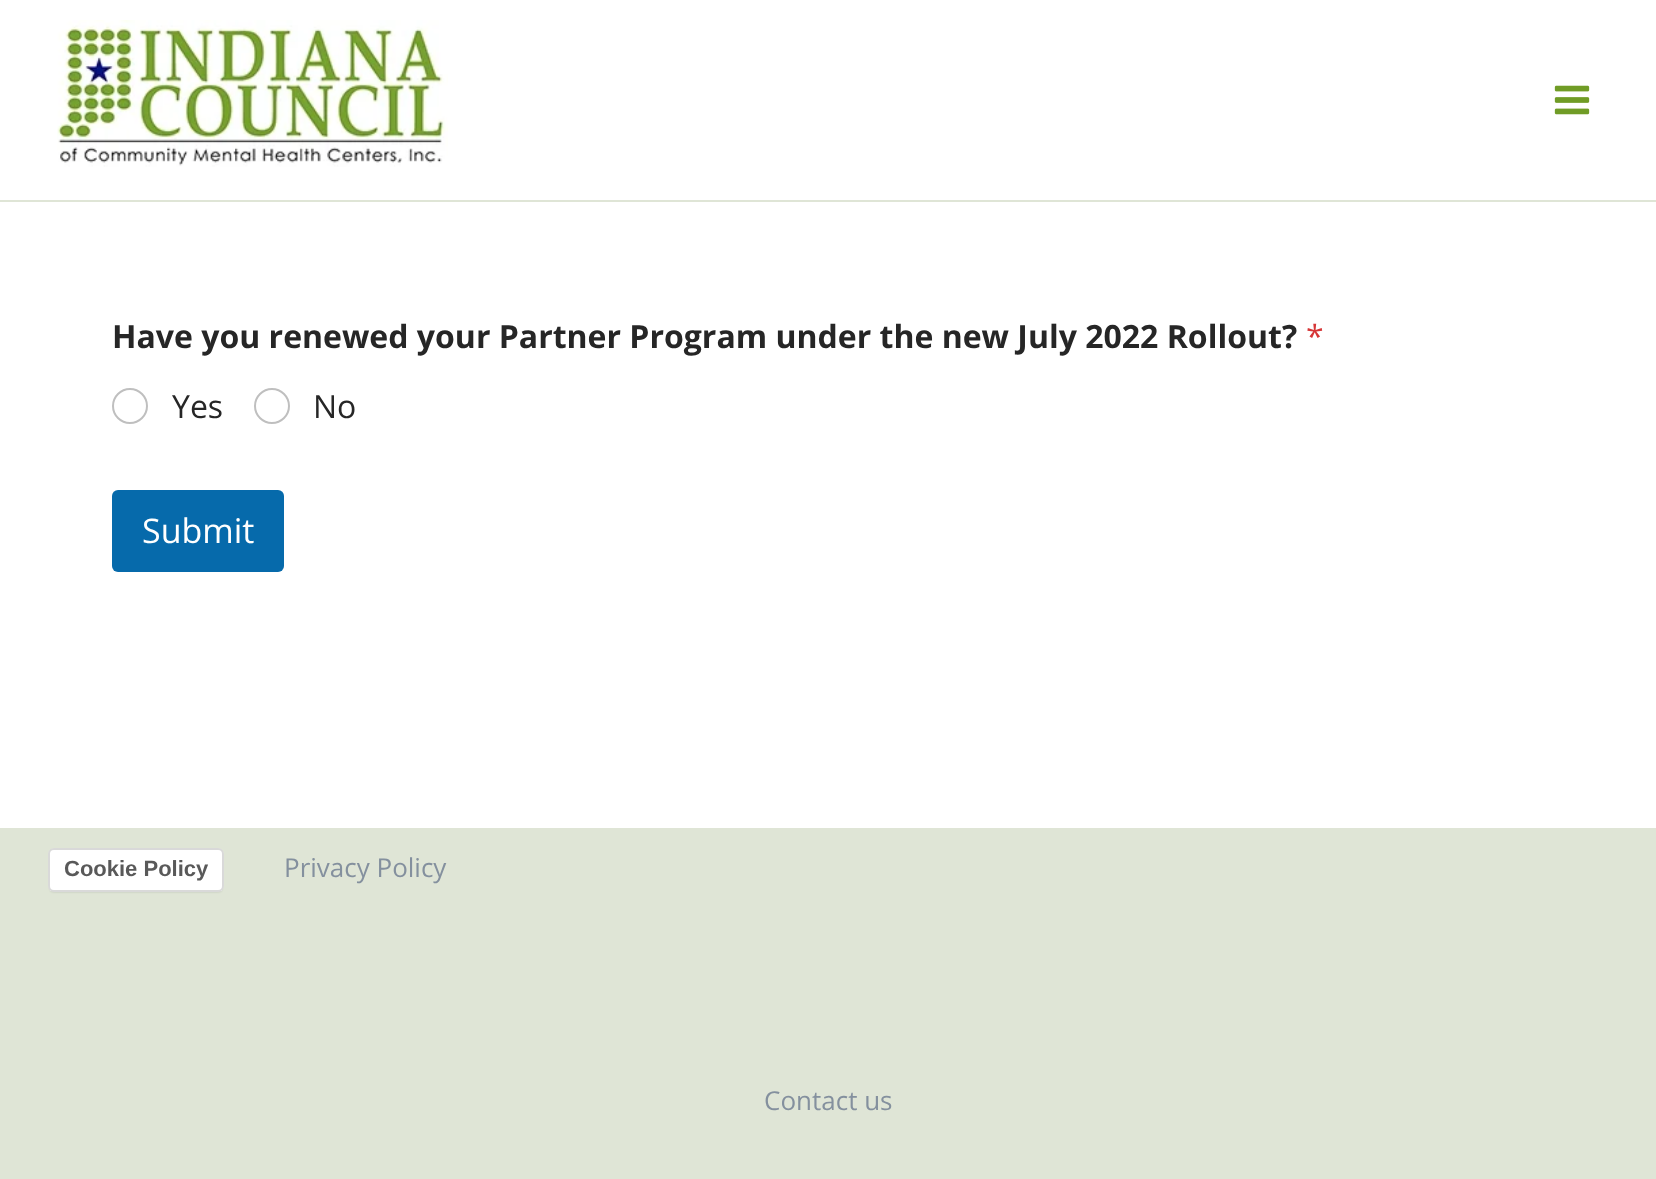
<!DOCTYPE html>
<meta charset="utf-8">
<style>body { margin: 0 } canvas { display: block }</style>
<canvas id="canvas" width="1656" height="1179"></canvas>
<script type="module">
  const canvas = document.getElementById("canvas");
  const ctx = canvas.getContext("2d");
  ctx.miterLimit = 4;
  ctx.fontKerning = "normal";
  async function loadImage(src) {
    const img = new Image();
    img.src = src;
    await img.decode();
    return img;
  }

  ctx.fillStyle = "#ffffff";
  ctx.fillRect(0, 0, 1656, 1179);
  ctx.fillStyle = "#dfe5d6";
  ctx.fillRect(0, 200, 1656, 2);
  ctx.drawImage(await loadImage("img1.png"), 57, 20, 391, 147);
  ctx.drawImage(await loadImage("img2.png"), 1554, 85, 36, 30);
  ctx.font = "bold 32px Open Sans";
  ctx.fillStyle = "#262626";
  ctx.fillText("Have you renewed your Partner Program under the new July 2022 Rollout?", 112, 348);
  ctx.font = "32px Open Sans";
  ctx.fillStyle = "#d63637";
  ctx.fillText("*", 1306, 348);
  ctx.beginPath();
  ctx.arc(130, 406, 17, 0, Math.PI * 2);
  ctx.strokeStyle = "#bfbfbf";
  ctx.lineWidth = 2;
  ctx.stroke();
  ctx.fillStyle = "#262626";
  ctx.fillText("Yes", 172, 418);
  ctx.beginPath();
  ctx.arc(272, 406, 17, 0, Math.PI * 2);
  ctx.stroke();
  ctx.fillText("No", 313, 418);
  ctx.fillStyle = "#066aab";
  ctx.beginPath();
  ctx.roundRect(112, 490, 172, 82, 6);
  ctx.fill();
  ctx.font = "34px Open Sans";
  ctx.fillStyle = "#ffffff";
  ctx.fillText("Submit", 142, 543);
  ctx.fillStyle = "#dfe5d6";
  ctx.fillRect(0, 828, 1656, 351);
  ctx.fillStyle = "rgba(0, 0, 0, 0.15)";
  ctx.filter = "blur(1px)";
  ctx.beginPath();
  ctx.roundRect(50, 852, 172, 40, 4);
  ctx.fill();
  ctx.filter = "none";
  ctx.fillStyle = "#ffffff";
  ctx.beginPath();
  ctx.roundRect(48, 848, 176, 44, 6);
  ctx.fill();
  ctx.beginPath();
  ctx.roundRect(49, 849, 174, 42, 5);
  ctx.strokeStyle = "rgba(0, 0, 0, 0.15)";
  ctx.stroke();
  ctx.font = "bold 22px Liberation Sans";
  ctx.fillStyle = "#595959";
  ctx.fillText("Cookie Policy", 64, 876);
  ctx.font = "26px Open Sans";
  ctx.fillStyle = "#84909e";
  ctx.fillText("Privacy Policy", 284, 877);
  ctx.fillText("Contact us", 764, 1110);
</script>
